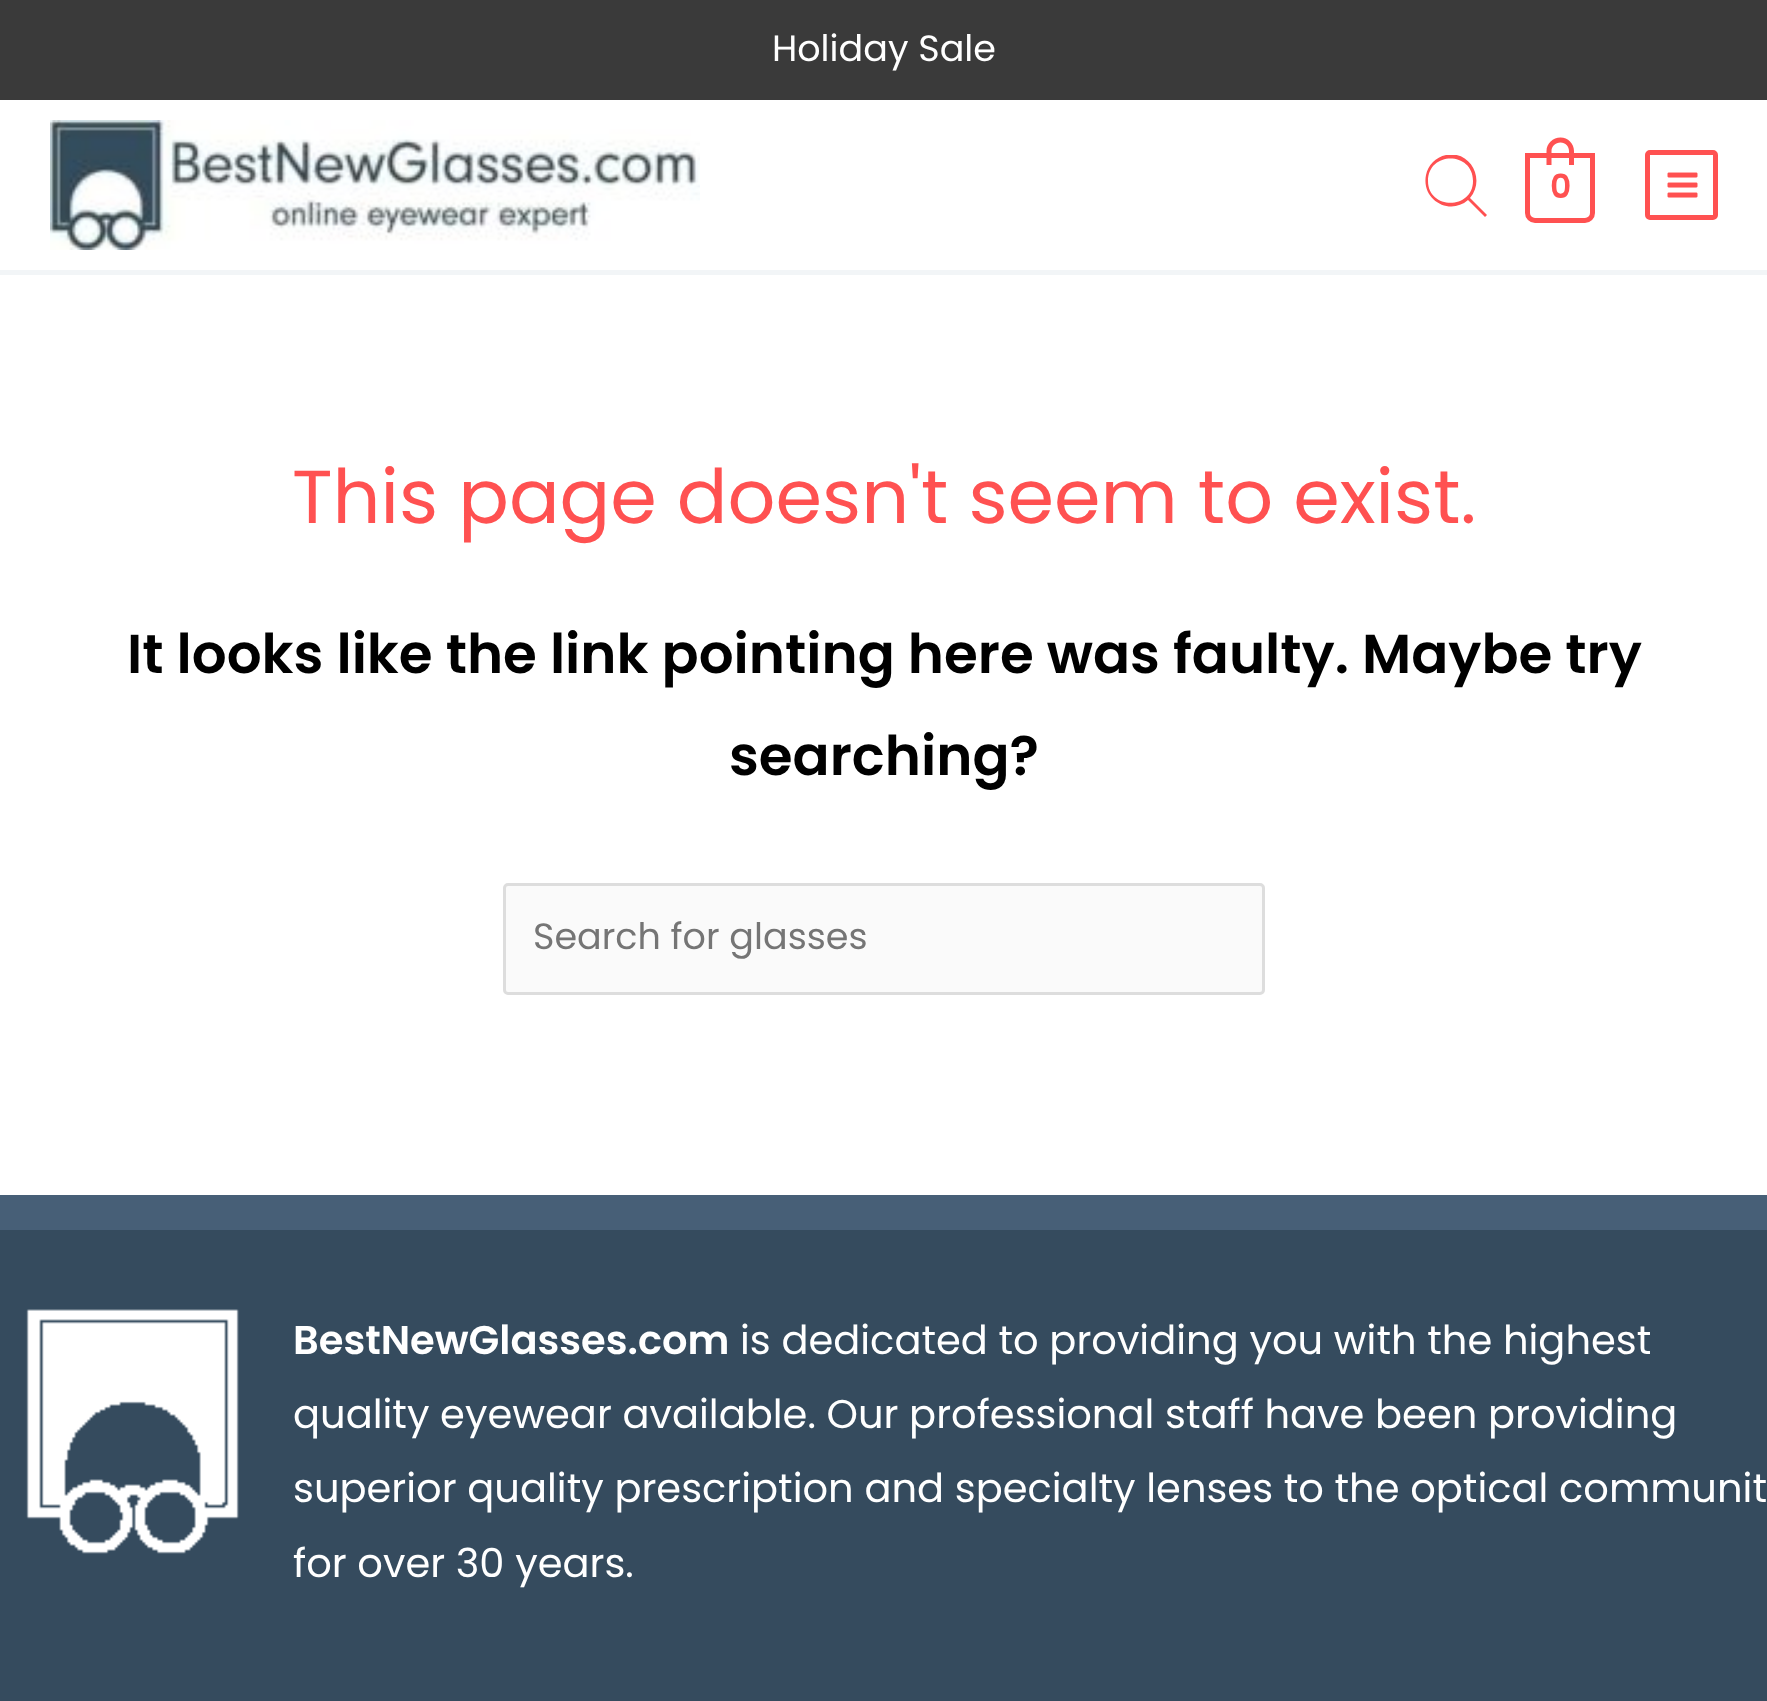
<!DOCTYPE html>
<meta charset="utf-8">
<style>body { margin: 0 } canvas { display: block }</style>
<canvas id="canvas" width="1767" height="1701"></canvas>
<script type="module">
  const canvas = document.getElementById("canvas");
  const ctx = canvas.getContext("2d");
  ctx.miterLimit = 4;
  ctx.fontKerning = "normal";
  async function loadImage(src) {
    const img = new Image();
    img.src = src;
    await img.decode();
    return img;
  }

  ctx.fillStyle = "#ffffff";
  ctx.fillRect(0, 0, 1767, 1701);
  ctx.fillStyle = "#3a3a3a";
  ctx.fillRect(0, 0, 1767, 100);
  ctx.font = "36.5px Poppins";
  ctx.fillStyle = "#ffffff";
  ctx.fillText("Holiday Sale", 772, 61);
  ctx.fillStyle = "#f2f5f7";
  ctx.fillRect(0, 270, 1767, 5);
  ctx.drawImage(await loadImage("img1.png"), 50, 120, 650, 130);
  ctx.save();
  ctx.beginPath();
  ctx.rect(1425, 155, 63, 63);
  ctx.clip();
  ctx.fillStyle = "#ff5051";
  ctx.beginPath();
  ctx.moveTo(1487, 215);
  ctx.lineTo(1470, 198);
  ctx.bezierCurveTo(1486, 179, 1470, 150, 1446, 155);
  ctx.bezierCurveTo(1441, 156, 1436, 159, 1433, 162);
  ctx.bezierCurveTo(1429, 166, 1427, 170, 1426, 175);
  ctx.bezierCurveTo(1421, 200, 1450, 216, 1468, 200);
  ctx.lineTo(1485, 217);
  ctx.closePath();
  ctx.moveTo(1428, 181);
  ctx.bezierCurveTo(1428, 151, 1473, 151, 1473, 181);
  ctx.bezierCurveTo(1473, 210, 1428, 210, 1428, 181);
  ctx.closePath();
  ctx.fill();
  ctx.restore();
  ctx.beginPath();
  ctx.roundRect(1527.5, 155.5, 65, 65, [0, 0, 7.5, 7.5]);
  ctx.strokeStyle = "#ff5151";
  ctx.lineWidth = 5;
  ctx.stroke();
  ctx.fillStyle = "#ff5151";
  ctx.beginPath();
  ctx.moveTo(1560.5, 137.5);
  ctx.bezierCurveTo(1568, 137.5, 1574, 143.5, 1574, 151);
  ctx.lineTo(1574, 165);
  ctx.lineTo(1546.5, 165);
  ctx.lineTo(1546.5, 151);
  ctx.bezierCurveTo(1546.5, 143.5, 1553, 137.5, 1560.5, 137.5);
  ctx.closePath();
  ctx.moveTo(1560.5, 142.5);
  ctx.bezierCurveTo(1565.5, 142.5, 1569, 146.5, 1569, 151);
  ctx.lineTo(1569, 165);
  ctx.lineTo(1551.5, 165);
  ctx.lineTo(1551.5, 151);
  ctx.bezierCurveTo(1551.5, 146.5, 1555.5, 142.5, 1560.5, 142.5);
  ctx.closePath();
  ctx.fill("evenodd");
  ctx.font = "600 33px Poppins";
  ctx.fillText("0", 1550, 198);
  ctx.beginPath();
  ctx.roundRect(1647.5, 152.5, 68, 65, 2.5);
  ctx.stroke();
  ctx.drawImage(await loadImage("img2.png"), 1667, 172, 31, 26);
  ctx.font = "75px Poppins";
  ctx.fillText("This page doesn't seem to exist.", 292, 523);
  ctx.font = "600 54.75px Poppins";
  ctx.fillStyle = "#000000";
  ctx.fillText("It looks like the link pointing here was faulty. Maybe try", 127, 673);
  ctx.fillText("searching?", 729, 775);
  ctx.fillStyle = "#fafafa";
  ctx.beginPath();
  ctx.roundRect(504.5, 884.5, 759, 109, 3.5);
  ctx.fill();
  ctx.strokeStyle = "#dddddd";
  ctx.lineWidth = 3;
  ctx.stroke();
  ctx.font = "36.5px Poppins";
  ctx.fillStyle = "#757575";
  ctx.fillText("Search for glasses", 533, 949);
  ctx.fillStyle = "#354b5e";
  ctx.fillRect(0, 1230, 1767, 471);
  ctx.fillStyle = "#475f77";
  ctx.fillRect(0, 1195, 1767, 35);
  ctx.drawImage(await loadImage("img3.png"), 26, 1309, 213, 245);
  ctx.font = "600 40px Poppins";
  ctx.fillStyle = "#ffffff";
  ctx.fillText("BestNewGlasses.com", 293, 1354);
  ctx.font = "40px Poppins";
  ctx.fillText("is dedicated to providing you with the highest", 740, 1354);
  ctx.fillText("quality eyewear available. Our professional staff have been providing", 293, 1428);
  ctx.fillText("superior quality prescription and specialty lenses to the optical communit", 293, 1502);
  ctx.fillText("for over 30 years.", 293, 1577);
</script>
